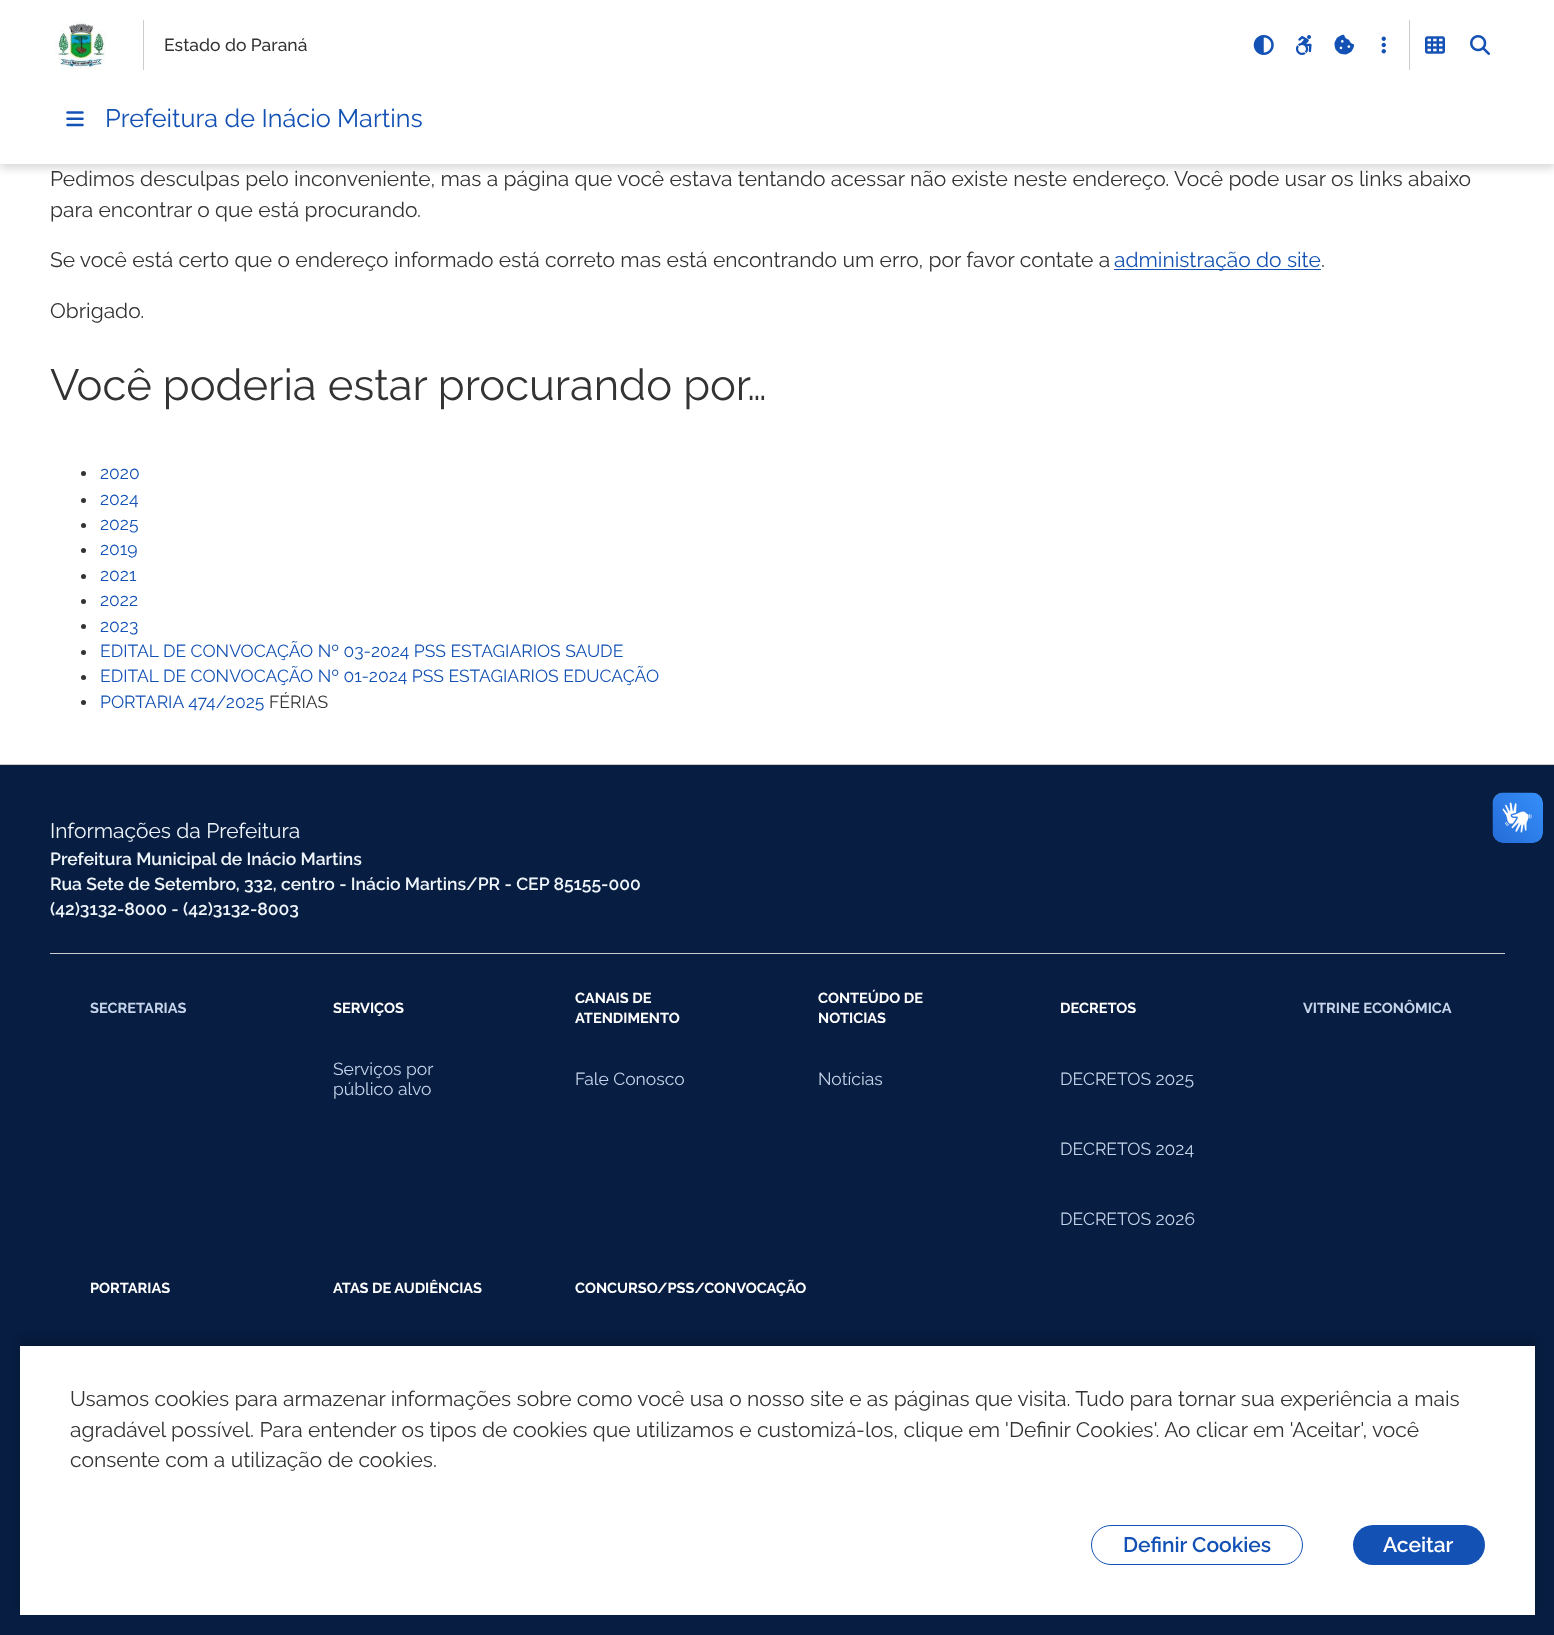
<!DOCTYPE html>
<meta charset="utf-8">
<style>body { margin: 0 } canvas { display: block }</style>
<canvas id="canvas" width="1554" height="1635"></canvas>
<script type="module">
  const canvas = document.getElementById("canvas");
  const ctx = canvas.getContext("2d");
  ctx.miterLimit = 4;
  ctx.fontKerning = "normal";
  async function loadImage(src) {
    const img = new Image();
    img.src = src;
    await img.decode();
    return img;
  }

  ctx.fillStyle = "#ffffff";
  ctx.fillRect(0, 0, 1554, 1635);
  ctx.fillStyle = "rgba(0, 0, 0, 0.16)";
  ctx.filter = "blur(4px)";
  ctx.beginPath();
  ctx.rect(0, 4, 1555, 164);
  ctx.fill();
  ctx.filter = "none";
  ctx.fillStyle = "#ffffff";
  ctx.fillRect(0, 0, 1554, 164);
  ctx.drawImage(await loadImage("img1.png"), 55, 20, 53, 50);
  ctx.fillStyle = "#cccccc";
  ctx.fillRect(143, 20, 1, 50);
  ctx.font = "500 17.5px Raleway";
  ctx.fillStyle = "#333333";
  ctx.fillText("Estado do Paraná", 164, 51);
  ctx.drawImage(await loadImage("img2.png"), 1253, 35, 21, 20);
  ctx.drawImage(await loadImage("img3.png"), 1295, 35, 17, 20);
  ctx.drawImage(await loadImage("img4.png"), 1334, 34, 21, 21);
  ctx.drawImage(await loadImage("img5.png"), 1381, 36, 5, 18);
  ctx.fillStyle = "#cccccc";
  ctx.fillRect(1409, 20, 1, 50);
  ctx.drawImage(await loadImage("img6.png"), 1425, 36, 20, 18);
  ctx.drawImage(await loadImage("img7.png"), 1470, 35, 20, 20);
  ctx.drawImage(await loadImage("img8.png"), 66, 111, 18, 16);
  ctx.font = "25.25px Raleway";
  ctx.fillStyle = "#1351b4";
  ctx.fillText("Prefeitura de Inácio Martins", 105, 127);
  ctx.font = "21px Raleway";
  ctx.fillStyle = "#333333";
  ctx.fillText("Pedimos desculpas pelo inconveniente, mas a página que você estava tentando acessar não existe neste endereço. Você pode usar os links abaixo", 50, 186);
  ctx.fillText("para encontrar o que está procurando.", 50, 217);
  ctx.fillText("Se você está certo que o endereço informado está correto mas está encontrando um erro, por favor contate a", 50, 267);
  ctx.fillStyle = "#1351b4";
  ctx.fillRect(1114, 269, 207, 1);
  ctx.fillText("administração do site", 1114, 267);
  ctx.fillStyle = "#333333";
  ctx.fillText(".", 1321, 267);
  ctx.fillText("Obrigado.", 50, 318);
  ctx.font = "43.5px Raleway";
  ctx.fillText("Você poderia estar procurando por…", 50, 400);
  ctx.beginPath();
  ctx.arc(83.5, 473.5, 2.5, 0, Math.PI * 2);
  ctx.fill();
  ctx.font = "17.5px Raleway";
  ctx.fillStyle = "#1351b4";
  ctx.fillText("2020", 100, 479);
  ctx.fillStyle = "#333333";
  ctx.beginPath();
  ctx.arc(83.5, 500.5, 2.5, 0, Math.PI * 2);
  ctx.fill();
  ctx.fillStyle = "#1351b4";
  ctx.fillText("2024", 100, 505);
  ctx.fillStyle = "#333333";
  ctx.beginPath();
  ctx.arc(83.5, 525.5, 2.5, 0, Math.PI * 2);
  ctx.fill();
  ctx.fillStyle = "#1351b4";
  ctx.fillText("2025", 100, 530);
  ctx.fillStyle = "#333333";
  ctx.beginPath();
  ctx.arc(83.5, 550.5, 2.5, 0, Math.PI * 2);
  ctx.fill();
  ctx.fillStyle = "#1351b4";
  ctx.fillText("2019", 100, 555);
  ctx.fillStyle = "#333333";
  ctx.beginPath();
  ctx.arc(83.5, 576.5, 2.5, 0, Math.PI * 2);
  ctx.fill();
  ctx.fillStyle = "#1351b4";
  ctx.fillText("2021", 100, 581);
  ctx.fillStyle = "#333333";
  ctx.beginPath();
  ctx.arc(83.5, 601.5, 2.5, 0, Math.PI * 2);
  ctx.fill();
  ctx.fillStyle = "#1351b4";
  ctx.fillText("2022", 100, 606);
  ctx.fillStyle = "#333333";
  ctx.beginPath();
  ctx.arc(83.5, 626.5, 2.5, 0, Math.PI * 2);
  ctx.fill();
  ctx.fillStyle = "#1351b4";
  ctx.fillText("2023", 100, 632);
  ctx.fillStyle = "#333333";
  ctx.beginPath();
  ctx.arc(83.5, 652.5, 2.5, 0, Math.PI * 2);
  ctx.fill();
  ctx.fillStyle = "#1351b4";
  ctx.fillText("EDITAL DE CONVOCAÇÃO Nº 03-2024 PSS ESTAGIARIOS SAUDE", 100, 657);
  ctx.fillStyle = "#333333";
  ctx.beginPath();
  ctx.arc(83.5, 677.5, 2.5, 0, Math.PI * 2);
  ctx.fill();
  ctx.fillStyle = "#1351b4";
  ctx.fillText("EDITAL DE CONVOCAÇÃO Nº 01-2024 PSS ESTAGIARIOS EDUCAÇÃO", 100, 682);
  ctx.fillStyle = "#333333";
  ctx.beginPath();
  ctx.arc(83.5, 702.5, 2.5, 0, Math.PI * 2);
  ctx.fill();
  ctx.fillStyle = "#1351b4";
  ctx.fillText("PORTARIA 474/2025", 100, 708);
  ctx.fillStyle = "#333333";
  ctx.fillText("FÉRIAS", 269, 708);
  ctx.fillStyle = "#071d41";
  ctx.fillRect(0, 765, 1554, 870);
  ctx.fillStyle = "#cccccc";
  ctx.fillRect(0, 764, 1554, 1);
  ctx.font = "21px Raleway";
  ctx.fillStyle = "#eff6fb";
  ctx.fillText("Informações da Prefeitura", 50, 838);
  ctx.font = "600 17.5px Raleway";
  ctx.fillText("Prefeitura Municipal de Inácio Martins", 50, 865);
  ctx.fillText("Rua Sete de Setembro, 332, centro - Inácio Martins/PR - CEP 85155-000", 50, 890);
  ctx.fillText("(42)3132-8000 - (42)3132-8003", 50, 915);
  ctx.fillStyle = "#cccccc";
  ctx.fillRect(50, 953, 1455, 1);
  ctx.font = "bold 14.6px Raleway";
  ctx.fillStyle = "#c5d4eb";
  ctx.fillText("SECRETARIAS", 90, 1013);
  ctx.fillStyle = "#ffffff";
  ctx.fillText("SERVIÇOS", 333, 1013);
  ctx.font = "17.5px Raleway";
  ctx.fillStyle = "#c5d4eb";
  ctx.fillText("Serviços por", 333, 1075);
  ctx.fillText("público alvo", 333, 1095);
  ctx.font = "bold 14.6px Raleway";
  ctx.fillStyle = "#ffffff";
  ctx.fillText("CANAIS DE", 575, 1003);
  ctx.fillText("ATENDIMENTO", 575, 1023);
  ctx.font = "17.5px Raleway";
  ctx.fillStyle = "#c5d4eb";
  ctx.fillText("Fale Conosco", 575, 1085);
  ctx.font = "bold 14.6px Raleway";
  ctx.fillStyle = "#ffffff";
  ctx.fillText("CONTEÚDO DE", 818, 1003);
  ctx.fillText("NOTICIAS", 818, 1023);
  ctx.font = "17.5px Raleway";
  ctx.fillStyle = "#c5d4eb";
  ctx.fillText("Notícias", 818, 1085);
  ctx.font = "bold 14.6px Raleway";
  ctx.fillStyle = "#ffffff";
  ctx.fillText("DECRETOS", 1060, 1013);
  ctx.font = "17.5px Raleway";
  ctx.fillStyle = "#c5d4eb";
  ctx.fillText("DECRETOS 2025", 1060, 1085);
  ctx.fillText("DECRETOS 2024", 1060, 1155);
  ctx.fillText("DECRETOS 2026", 1060, 1225);
  ctx.font = "bold 14.6px Raleway";
  ctx.fillText("VITRINE ECONÔMICA", 1303, 1013);
  ctx.fillStyle = "#ffffff";
  ctx.fillText("PORTARIAS", 90, 1293);
  ctx.fillText("ATAS DE AUDIÊNCIAS", 333, 1293);
  ctx.fillText("CONCURSO/PSS/CONVOCAÇÃO", 575, 1293);
  ctx.drawImage(await loadImage("img9.png"), 1492, 792, 51, 51);
  ctx.drawImage(await loadImage("img10.png"), 1493, 793, 50, 50);
  ctx.fillStyle = "rgba(0, 0, 0, 0.16)";
  ctx.filter = "blur(4px)";
  ctx.beginPath();
  ctx.rect(20, 1339, 1515, 269);
  ctx.fill();
  ctx.filter = "none";
  ctx.fillStyle = "#ffffff";
  ctx.fillRect(20, 1346, 1515, 269);
  ctx.font = "21px Raleway";
  ctx.fillStyle = "#333333";
  ctx.fillText("Usamos cookies para armazenar informações sobre como você usa o nosso site e as páginas que visita. Tudo para tornar sua experiência a mais", 70, 1406);
  ctx.fillText("agradável possível. Para entender os tipos de cookies que utilizamos e customizá-los, clique em 'Definir Cookies'. Ao clicar em 'Aceitar', você", 70, 1437);
  ctx.fillText("consente com a utilização de cookies.", 70, 1467);
  ctx.beginPath();
  ctx.roundRect(1091.5, 1525.5, 211, 39, 19.5);
  ctx.strokeStyle = "#1351b4";
  ctx.stroke();
  ctx.font = "600 21px Raleway";
  ctx.fillStyle = "#1351b4";
  ctx.fillText("Definir Cookies", 1123, 1552);
  ctx.beginPath();
  ctx.roundRect(1353, 1525, 132, 40, 20);
  ctx.fill();
  ctx.fillStyle = "#ffffff";
  ctx.fillText("Aceitar", 1383, 1552);
</script>
